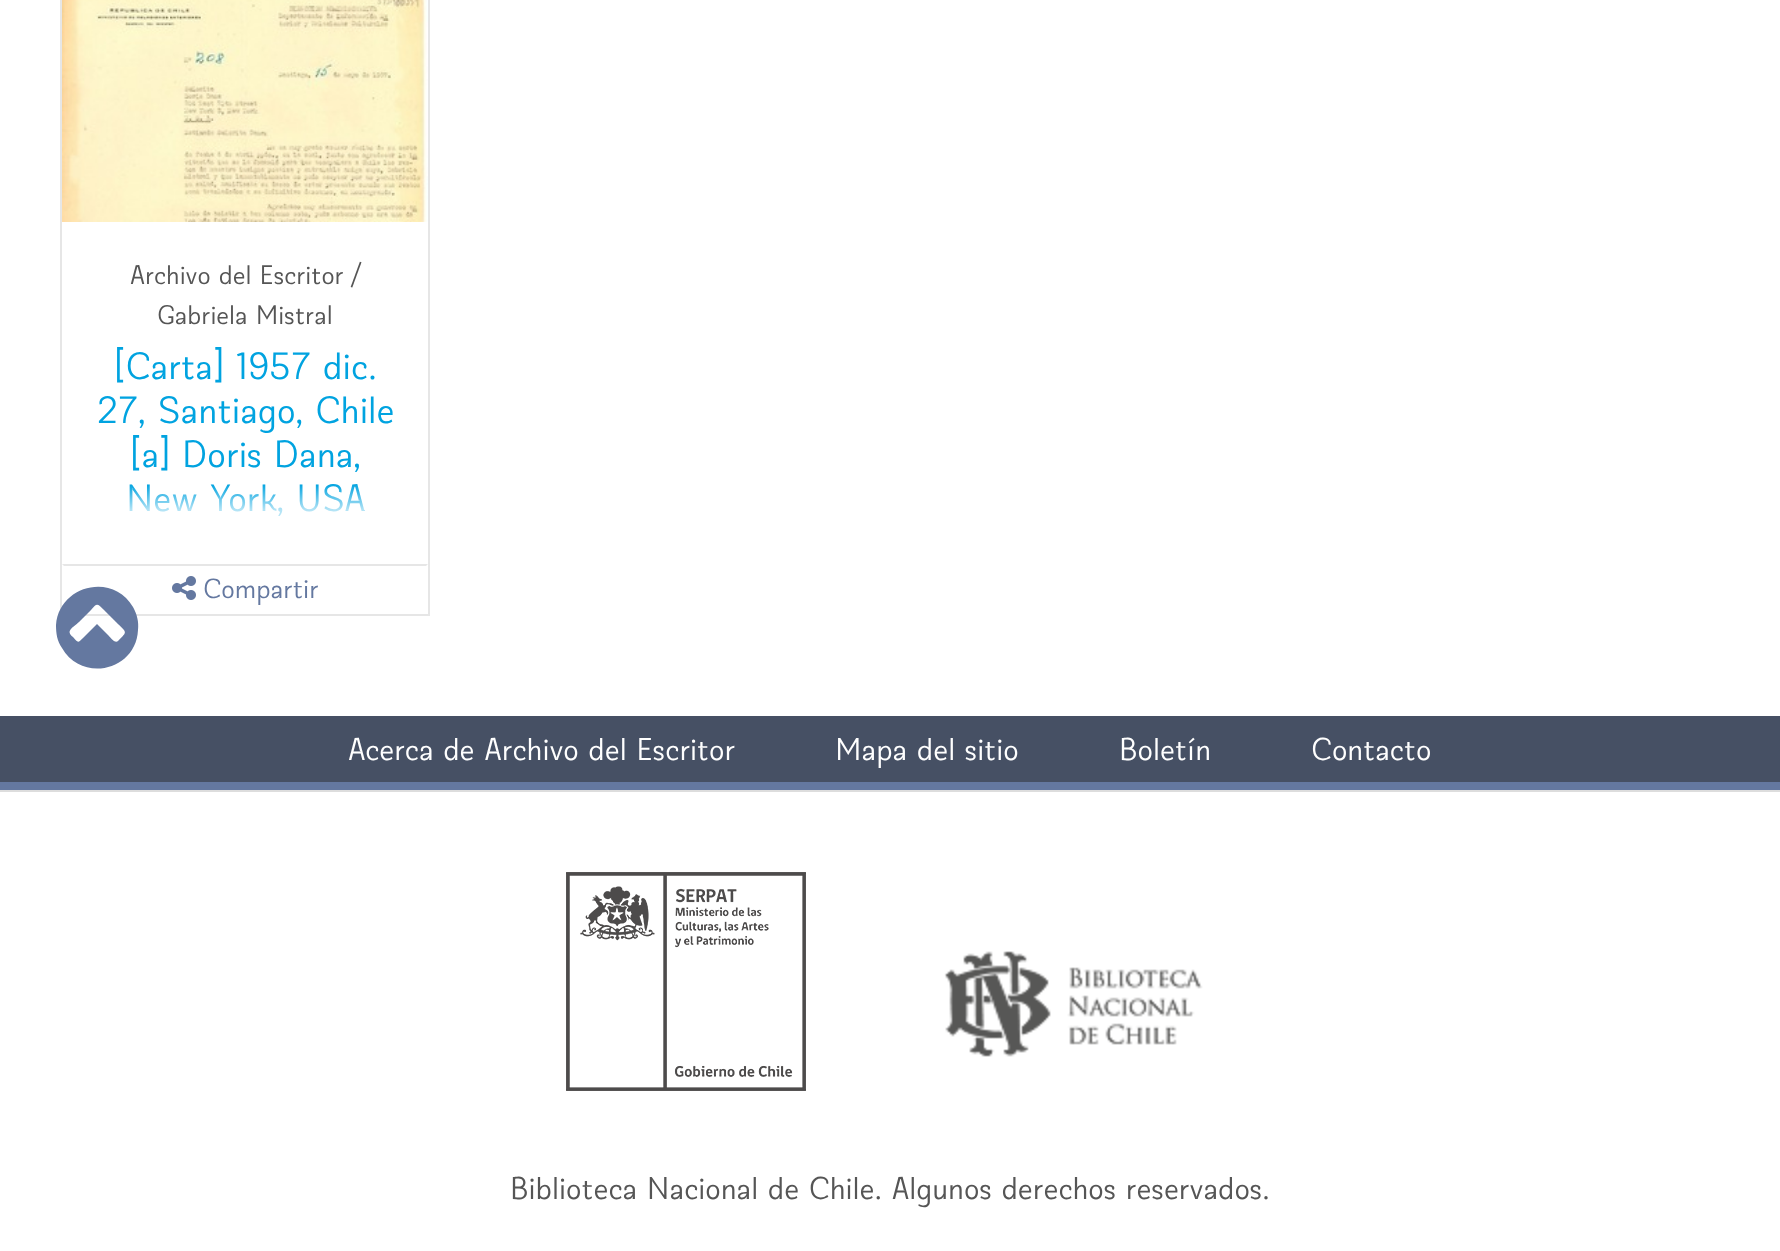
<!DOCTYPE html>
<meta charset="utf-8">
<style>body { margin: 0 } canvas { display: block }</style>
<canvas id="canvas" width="1780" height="1251"></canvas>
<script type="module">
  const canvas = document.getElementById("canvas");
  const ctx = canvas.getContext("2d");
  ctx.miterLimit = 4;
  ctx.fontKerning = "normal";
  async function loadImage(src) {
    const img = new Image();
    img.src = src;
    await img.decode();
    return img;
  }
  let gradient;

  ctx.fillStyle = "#ffffff";
  ctx.fillRect(0, 0, 1780, 1251);
  ctx.strokeStyle = "#e6e6e6";
  ctx.lineWidth = 2;
  ctx.strokeRect(61, -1, 368, 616);
  ctx.drawImage(await loadImage("img1.png"), 62, 0, 366, 222);
  ctx.font = "27.25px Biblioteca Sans";
  ctx.fillStyle = "#555555";
  ctx.fillText("Archivo del Escritor /", 130, 284);
  ctx.fillText("Gabriela Mistral", 157, 324);
  ctx.font = "38.5px Biblioteca Sans";
  ctx.fillStyle = "#00a3e0";
  ctx.fillText("[Carta] 1957 dic.", 114, 379);
  ctx.fillText("27, Santiago, Chile", 97, 423);
  ctx.fillText("[a] Doris Dana,", 130, 467);
  ctx.fillText("New York, USA", 126, 511);
  gradient = ctx.createLinearGradient(245, 484, 245, 614);
  gradient.addColorStop(0, "rgba(255, 255, 255, 0)");
  gradient.addColorStop(0.2, "rgba(255, 255, 255, 0.7)");
  gradient.addColorStop(1, "#ffffff");
  ctx.fillStyle = gradient;
  ctx.fillRect(129, 485, 235, 31);
  ctx.fillStyle = "#e6e6e6";
  ctx.beginPath();
  ctx.moveTo(62, 564);
  ctx.lineTo(428, 564);
  ctx.lineTo(426, 566);
  ctx.lineTo(64, 566);
  ctx.closePath();
  ctx.fill();
  ctx.drawImage(await loadImage("img2.png"), 172, 576, 24, 24);
  ctx.font = "28px Biblioteca Sans";
  ctx.fillStyle = "#6478a0";
  ctx.fillText("Compartir", 203, 598);
  ctx.beginPath();
  ctx.moveTo(118, 641);
  ctx.bezierCurveTo(128, 631, 127, 633, 116, 622);
  ctx.lineTo(104, 610);
  ctx.bezierCurveTo(97, 603, 97, 603, 91, 610);
  ctx.lineTo(79, 622);
  ctx.bezierCurveTo(71, 629, 66, 631, 73, 637);
  ctx.bezierCurveTo(78, 643, 78, 643, 83, 638);
  ctx.lineTo(97, 624);
  ctx.lineTo(108, 635);
  ctx.bezierCurveTo(110, 637, 115, 644, 118, 641);
  ctx.closePath();
  ctx.moveTo(133, 607);
  ctx.bezierCurveTo(137, 614, 139, 622, 138, 630);
  ctx.bezierCurveTo(136, 671, 82, 683, 62, 648);
  ctx.bezierCurveTo(57, 641, 56, 633, 56, 625);
  ctx.bezierCurveTo(59, 585, 113, 572, 133, 607);
  ctx.closePath();
  ctx.fill();
  ctx.fillStyle = "#465064";
  ctx.fillRect(0, 716, 1780, 66);
  ctx.fillStyle = "#6478a0";
  ctx.fillRect(0, 782, 1780, 8);
  ctx.font = "32px Biblioteca Sans";
  ctx.fillStyle = "#ffffff";
  ctx.fillText("Acerca de Archivo del Escritor", 348, 760);
  ctx.fillText("Mapa del sitio", 835, 760);
  ctx.fillText("Boletín", 1119, 760);
  ctx.fillText("Contacto", 1311, 760);
  ctx.fillStyle = "#dddddd";
  ctx.fillRect(0, 790, 1780, 2);
  ctx.drawImage(await loadImage("img3.png"), 566, 872, 240, 219);
  ctx.drawImage(await loadImage("img4.png"), 944, 951, 259, 106);
  ctx.fillStyle = "#555555";
  ctx.fillText("Biblioteca Nacional de Chile. Algunos derechos reservados.", 510, 1199);
</script>
